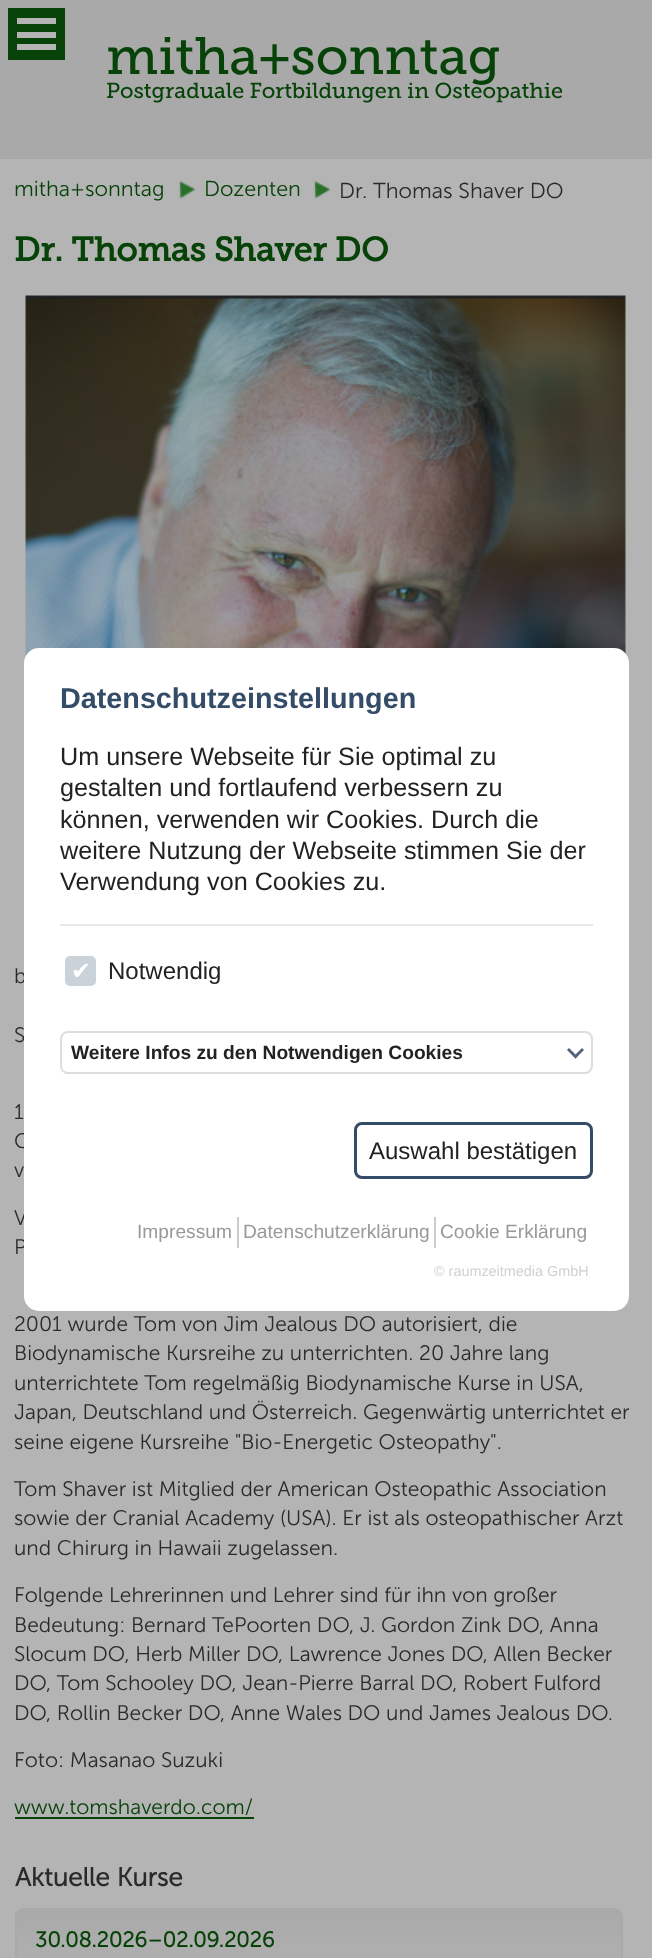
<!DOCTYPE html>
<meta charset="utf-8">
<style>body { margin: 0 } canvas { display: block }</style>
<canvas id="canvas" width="652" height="1958"></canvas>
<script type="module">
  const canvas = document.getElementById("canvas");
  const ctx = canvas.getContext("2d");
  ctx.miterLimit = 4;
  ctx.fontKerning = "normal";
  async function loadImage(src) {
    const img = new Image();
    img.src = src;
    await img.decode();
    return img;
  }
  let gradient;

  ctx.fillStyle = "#b4b4b5";
  ctx.fillRect(0, 0, 652, 1958);
  ctx.fillStyle = "#a9a9a9";
  ctx.fillRect(0, 0, 652, 159);
  ctx.fillStyle = "#074308";
  ctx.fillRect(8, 8, 57, 52);
  ctx.fillStyle = "#b4b4b5";
  ctx.fillRect(17, 44, 39, 6);
  ctx.fillRect(17, 32, 39, 6);
  ctx.fillRect(17, 18, 39, 6);
  ctx.font = "52.25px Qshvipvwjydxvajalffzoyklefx";
  ctx.fillStyle = "#074308";
  ctx.fillText("mitha+sonntag", 106, 74);
  ctx.font = "21.6px Qshvipvwjydxvajalffzoyklefx";
  ctx.fillText("Postgraduale Fortbildungen in Osteopathie", 106, 98);
  ctx.font = "300 21.6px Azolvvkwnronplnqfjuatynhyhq";
  ctx.fillText("mitha+sonntag", 14, 196);
  ctx.drawImage(await loadImage("img1.png"), 179, 181, 17, 18);
  ctx.fillText("Dozenten", 204, 196);
  ctx.drawImage(await loadImage("img2.png"), 314, 181, 17, 18);
  ctx.fillStyle = "#292a2a";
  ctx.fillText("Dr. Thomas Shaver DO", 339, 198);
  ctx.font = "bold 33.6px Qshvipvwjydxvajalffzoyklefx";
  ctx.fillStyle = "#074308";
  ctx.fillText("Dr. Thomas Shaver DO", 14, 261);
  ctx.drawImage(await loadImage("img3.png"), 25, 295, 601, 363);
  ctx.font = "300 21px Azolvvkwnronplnqfjuatynhyhq";
  ctx.fillStyle = "#292a2a";
  ctx.fillText("b", 14, 983);
  ctx.fillText("S", 14, 1042);
  ctx.fillText("1", 14, 1119);
  ctx.fillText("C", 14, 1148);
  ctx.fillText("v", 14, 1177);
  ctx.fillText("V", 14, 1225);
  ctx.fillText("P", 14, 1254);
  ctx.fillText("2001 wurde Tom von Jim Jealous DO autorisiert, die", 14, 1331);
  ctx.fillText("Biodynamische Kursreihe zu unterrichten. 20 Jahre lang", 14, 1360);
  ctx.fillText("unterrichtete Tom regelmäßig Biodynamische Kurse in USA,", 14, 1390);
  ctx.fillText("Japan, Deutschland und Österreich. Gegenwärtig unterrichtet er", 14, 1419);
  ctx.fillText("seine eigene Kursreihe \"Bio-Energetic Osteopathy\".", 14, 1449);
  ctx.fillText("Tom Shaver ist Mitglied der American Osteopathic Association", 14, 1496);
  ctx.fillText("sowie der Cranial Academy (USA). Er ist als osteopathischer Arzt", 14, 1525);
  ctx.fillText("und Chirurg in Hawaii zugelassen.", 14, 1555);
  ctx.fillText("Folgende Lehrerinnen und Lehrer sind für ihn von großer", 14, 1602);
  ctx.fillText("Bedeutung: Bernard TePoorten DO, J. Gordon Zink DO, Anna", 14, 1632);
  ctx.fillText("Slocum DO, Herb Miller DO, Lawrence Jones DO, Allen Becker", 14, 1661);
  ctx.fillText("DO, Tom Schooley DO, Jean-Pierre Barral DO, Robert Fulford", 14, 1690);
  ctx.fillText("DO, Rollin Becker DO, Anne Wales DO und James Jealous DO.", 14, 1720);
  ctx.fillText("Foto: Masanao Suzuki", 14, 1767);
  ctx.fillStyle = "#074308";
  ctx.fillText("www.tomshaverdo.com/", 14, 1814);
  ctx.fillRect(15, 1817, 239, 2);
  ctx.font = "bold 26px Azolvvkwnronplnqfjuatynhyhq";
  ctx.fillStyle = "#292a2a";
  ctx.fillText("Aktuelle Kurse", 15, 1886);
  ctx.save();
  ctx.beginPath();
  ctx.roundRect(15, 1908, 608, 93, 9);
  ctx.clip();
  gradient = ctx.createLinearGradient(319, 1910, 319, 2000);
  gradient.addColorStop(0, "#a9a9a9");
  gradient.addColorStop(0.7, "#b1b1b1");
  ctx.fillStyle = gradient;
  ctx.fillRect(15, 1910, 608, 48);
  ctx.restore();
  ctx.beginPath();
  ctx.roundRect(16, 1909, 606, 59, 8);
  ctx.strokeStyle = "#a9a9a9";
  ctx.lineWidth = 2;
  ctx.stroke();
  ctx.font = "bold 21.6px Azolvvkwnronplnqfjuatynhyhq";
  ctx.fillStyle = "#074308";
  ctx.fillText("30.08.2026–02.09.2026", 35, 1947);
  ctx.fillStyle = "#ffffff";
  ctx.beginPath();
  ctx.roundRect(24, 648, 605, 663, 15);
  ctx.fill();
  ctx.font = "bold 28.75px Liberation Sans";
  ctx.fillStyle = "#344c68";
  ctx.fillText("Datenschutzeinstellungen", 60, 708);
  ctx.fillStyle = "#e8e8e8";
  ctx.fillRect(60, 924, 533, 2);
  ctx.font = "25.2px Liberation Sans";
  ctx.fillStyle = "#222222";
  ctx.fillText("Um unsere Webseite für Sie optimal zu", 60, 765);
  ctx.fillText("gestalten und fortlaufend verbessern zu", 60, 796);
  ctx.fillText("können, verwenden wir Cookies. Durch die", 60, 828);
  ctx.fillText("weitere Nutzung der Webseite stimmen Sie der", 60, 859);
  ctx.fillText("Verwendung von Cookies zu.", 60, 890);
  ctx.fillStyle = "#cad3d9";
  ctx.beginPath();
  ctx.roundRect(65, 956, 31, 30, 5);
  ctx.fill();
  ctx.font = "24px DejaVu Sans";
  ctx.fillStyle = "#ffffff";
  ctx.fillText("✔", 71, 979);
  ctx.font = "24px Liberation Sans";
  ctx.fillStyle = "#222222";
  ctx.fillText("Notwendig", 108, 979);
  ctx.beginPath();
  ctx.roundRect(61, 1032, 531, 41, 7);
  ctx.strokeStyle = "#dddddd";
  ctx.stroke();
  ctx.font = "bold 19.2px Liberation Sans";
  ctx.fillText("Weitere Infos zu den Notwendigen Cookies", 71, 1059);
  ctx.fillStyle = "#52627c";
  ctx.beginPath();
  ctx.moveTo(573.5, 1056.5);
  ctx.lineTo(582, 1048);
  ctx.lineTo(584, 1050);
  ctx.lineTo(575.5, 1058.5);
  ctx.closePath();
  ctx.fill();
  ctx.beginPath();
  ctx.moveTo(567, 1050);
  ctx.lineTo(569, 1048);
  ctx.lineTo(577.5, 1056.5);
  ctx.lineTo(575.5, 1058.5);
  ctx.closePath();
  ctx.fill();
  ctx.beginPath();
  ctx.roundRect(355.5, 1123.5, 236, 54, 6.5);
  ctx.strokeStyle = "#344c68";
  ctx.lineWidth = 3;
  ctx.stroke();
  ctx.font = "24px Liberation Sans";
  ctx.fillStyle = "#222222";
  ctx.fillText("Auswahl bestätigen", 369, 1159);
  ctx.fillStyle = "#cccccc";
  ctx.fillRect(237, 1217, 2, 31);
  ctx.font = "19.2px Liberation Sans";
  ctx.fillStyle = "#999999";
  ctx.fillText("Impressum", 137, 1238);
  ctx.fillStyle = "#cccccc";
  ctx.fillRect(434, 1217, 2, 31);
  ctx.fillStyle = "#999999";
  ctx.fillText("Datenschutzerklärung", 243, 1238);
  ctx.fillText("Cookie Erklärung", 440, 1238);
  ctx.font = "14.4px Liberation Sans";
  ctx.fillStyle = "#d0d0d0";
  ctx.fillText("© raumzeitmedia GmbH", 434, 1276);
</script>
